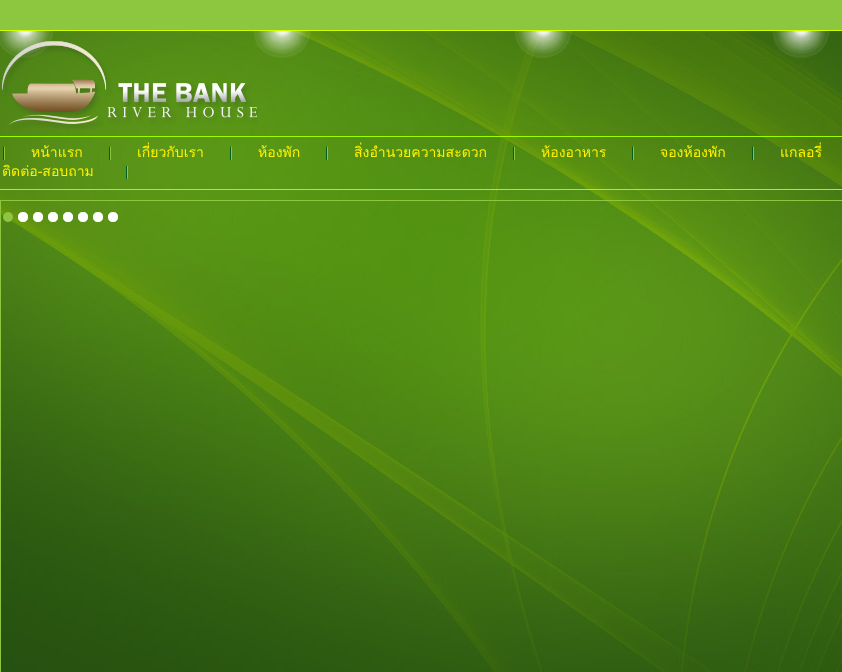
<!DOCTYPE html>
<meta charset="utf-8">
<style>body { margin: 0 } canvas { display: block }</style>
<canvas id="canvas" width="842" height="672"></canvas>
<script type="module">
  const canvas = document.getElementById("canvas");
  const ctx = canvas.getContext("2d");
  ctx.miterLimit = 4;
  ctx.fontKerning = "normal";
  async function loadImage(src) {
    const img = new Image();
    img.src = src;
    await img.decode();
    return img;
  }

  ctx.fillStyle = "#ffffff";
  ctx.fillRect(0, 0, 842, 672);
  ctx.drawImage(await loadImage("img1.png"), 0, 31, 842, 641);
  ctx.fillStyle = "#8dc73f";
  ctx.fillRect(0, 0, 842, 30);
  ctx.fillStyle = "#ccff00";
  ctx.fillRect(0, 30, 842, 1);
  ctx.drawImage(await loadImage("img2.png"), 2, 41, 256, 89);
  ctx.fillStyle = "#99ff00";
  ctx.fillRect(0, 136, 842, 1);
  ctx.fillRect(0, 189, 842, 1);
  ctx.drawImage(await loadImage("img3.png"), 3, 147, 2, 13);
  ctx.font = "14px Loma";
  ctx.fillStyle = "#fff200";
  ctx.fillText("หน้าแรก", 31, 157);
  ctx.drawImage(await loadImage("img3.png"), 109, 147, 2, 13);
  ctx.fillText("เกี่ยวกับเรา", 137, 157);
  ctx.drawImage(await loadImage("img3.png"), 230, 147, 2, 13);
  ctx.fillText("ห้องพัก", 258, 157);
  ctx.drawImage(await loadImage("img3.png"), 326, 147, 2, 13);
  ctx.fillText("สิ่งอำนวยความสะดวก", 354, 157);
  ctx.drawImage(await loadImage("img3.png"), 513, 147, 2, 13);
  ctx.fillText("ห้องอาหาร", 541, 157);
  ctx.drawImage(await loadImage("img3.png"), 632, 147, 2, 13);
  ctx.fillText("จองห้องพัก", 660, 157);
  ctx.drawImage(await loadImage("img3.png"), 752, 147, 2, 13);
  ctx.fillText("แกลอรี่", 780, 157);
  ctx.fillText("ติดต่อ-สอบถาม", 2, 176);
  ctx.drawImage(await loadImage("img3.png"), 126, 166, 2, 13);
  ctx.strokeStyle = "#8dc73f";
  ctx.strokeRect(0.5, 200.5, 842, 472);
  ctx.drawImage(await loadImage("img4.png"), 3, 212, 10, 10);
  ctx.drawImage(await loadImage("img5.png"), 18, 212, 10, 10);
  ctx.drawImage(await loadImage("img6.png"), 33, 212, 10, 10);
  ctx.drawImage(await loadImage("img7.png"), 48, 212, 10, 10);
  ctx.drawImage(await loadImage("img8.png"), 63, 212, 10, 10);
  ctx.drawImage(await loadImage("img9.png"), 78, 212, 10, 10);
  ctx.drawImage(await loadImage("img10.png"), 93, 212, 10, 10);
  ctx.drawImage(await loadImage("img11.png"), 108, 212, 10, 10);
</script>
